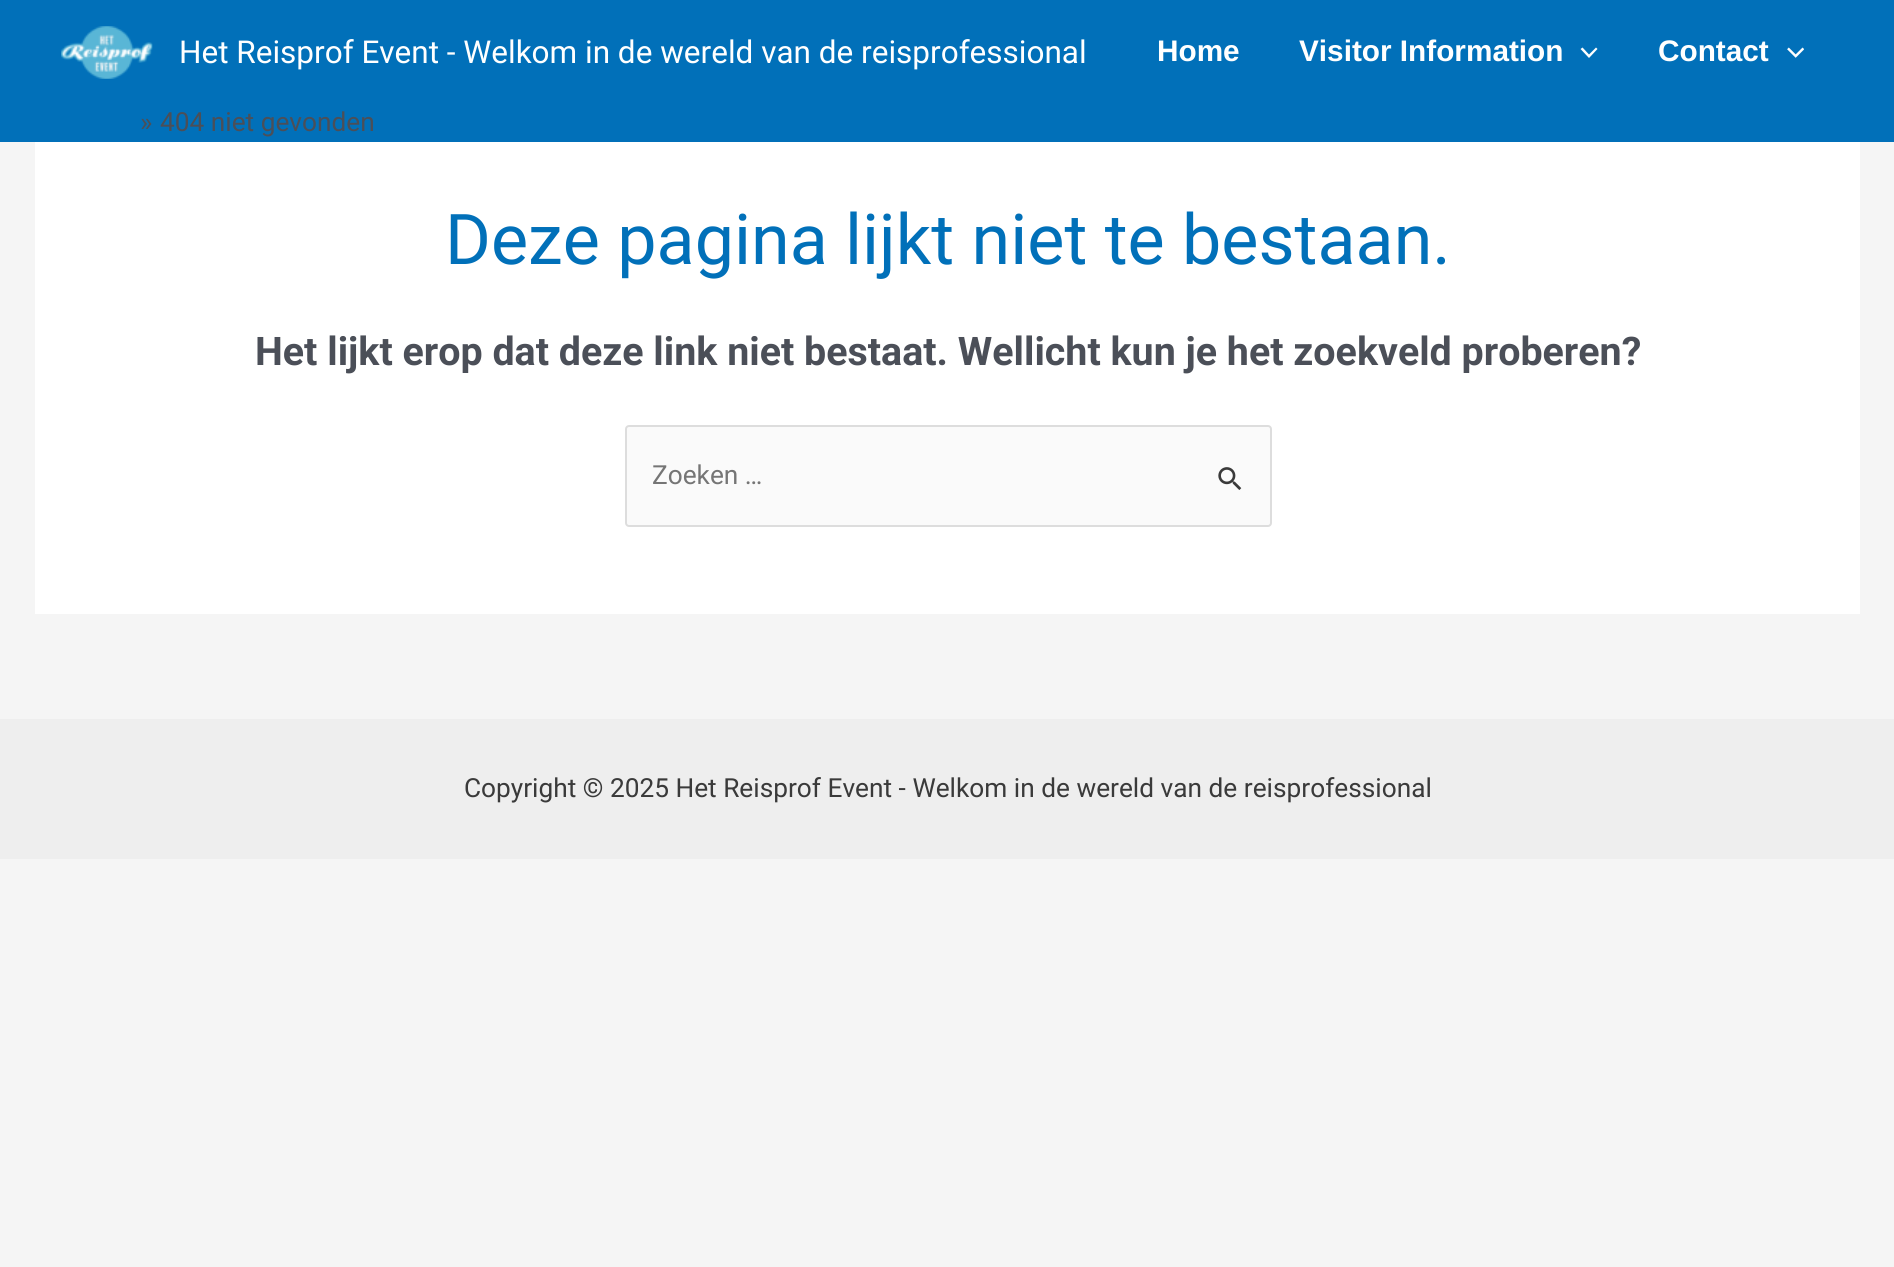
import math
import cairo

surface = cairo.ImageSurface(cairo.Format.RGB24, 1894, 1267)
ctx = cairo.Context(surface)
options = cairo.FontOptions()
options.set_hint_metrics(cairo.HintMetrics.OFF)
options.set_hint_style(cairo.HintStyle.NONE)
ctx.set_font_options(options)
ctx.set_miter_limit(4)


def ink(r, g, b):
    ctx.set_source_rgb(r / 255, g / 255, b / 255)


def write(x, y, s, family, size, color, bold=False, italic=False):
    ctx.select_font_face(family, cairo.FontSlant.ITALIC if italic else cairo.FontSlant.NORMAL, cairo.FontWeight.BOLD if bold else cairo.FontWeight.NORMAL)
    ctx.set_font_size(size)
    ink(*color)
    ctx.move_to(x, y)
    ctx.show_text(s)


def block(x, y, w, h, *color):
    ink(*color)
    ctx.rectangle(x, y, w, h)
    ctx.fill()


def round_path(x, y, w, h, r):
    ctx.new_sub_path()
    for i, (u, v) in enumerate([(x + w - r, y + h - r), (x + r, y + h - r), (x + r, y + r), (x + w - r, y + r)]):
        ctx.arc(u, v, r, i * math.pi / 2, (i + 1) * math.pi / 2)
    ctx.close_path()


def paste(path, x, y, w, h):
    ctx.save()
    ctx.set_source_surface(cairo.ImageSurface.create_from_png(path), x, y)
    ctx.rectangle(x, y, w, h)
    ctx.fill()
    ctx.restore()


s1 = dict(family="Roboto", size=31.5, color=(255, 255, 255))
s2 = dict(family="Liberation Sans", size=29.75, color=(255, 255, 255), bold=True)
s3 = dict(family="Roboto", size=26.25, color=(75, 79, 88))
s4 = dict(family="Roboto", size=70, color=(1, 112, 185))
s5 = dict(family="Roboto", size=39.4, color=(75, 79, 88), bold=True)
s6 = dict(family="Roboto", size=26.25, color=(117, 117, 117))
s7 = dict(family="Roboto", size=26.25, color=(58, 58, 58))

ink(245, 245, 245)
ctx.paint()
block(0, 0, 1894, 142, 1, 112, 185)
paste("pic1.png", 61, 26, 92, 53)
write(179, 63, "Het Reisprof Event - Welkom in de wereld van de reisprofessional", **s1)
write(1157, 61, "Home", **s2)
write(1299, 61, "Visitor Information", **s2)
ink(254, 254, 254)
ctx.new_path()
ctx.move_to(1580.5, 49)
ctx.line_to(1589, 58)
ctx.line_to(1597.5, 49)
ctx.line_to(1596, 47.5)
ctx.line_to(1589, 54.5)
ctx.line_to(1582.5, 47.5)
ctx.close_path()
ctx.fill()
write(1658, 61, "Contact", **s2)
paste("pic2.png", 1787, 47, 17, 11)
write(140, 131, "»", **s3)
write(160, 131, "404 niet gevonden", **s3)
block(35, 142, 1825, 472, 255, 255, 255)
write(445, 264, "Deze pagina lijkt niet te bestaan.", **s4)
write(255, 365, "Het lijkt erop dat deze link niet bestaat. Wellicht kun je het zoekveld proberen?", **s5)
ink(250, 250, 250)
round_path(626, 426, 645, 100, 3)
ctx.fill_preserve()
ink(221, 221, 221)
ctx.stroke()
write(652, 484, "Zoeken …", **s6)
paste("pic3.png", 1218, 467, 24, 23)
block(0, 719, 1894, 140, 238, 238, 238)
write(464, 797, "Copyright © 2025 Het Reisprof Event - Welkom in de wereld van de reisprofessional", **s7)
surface.write_to_png("screenshot.png")
